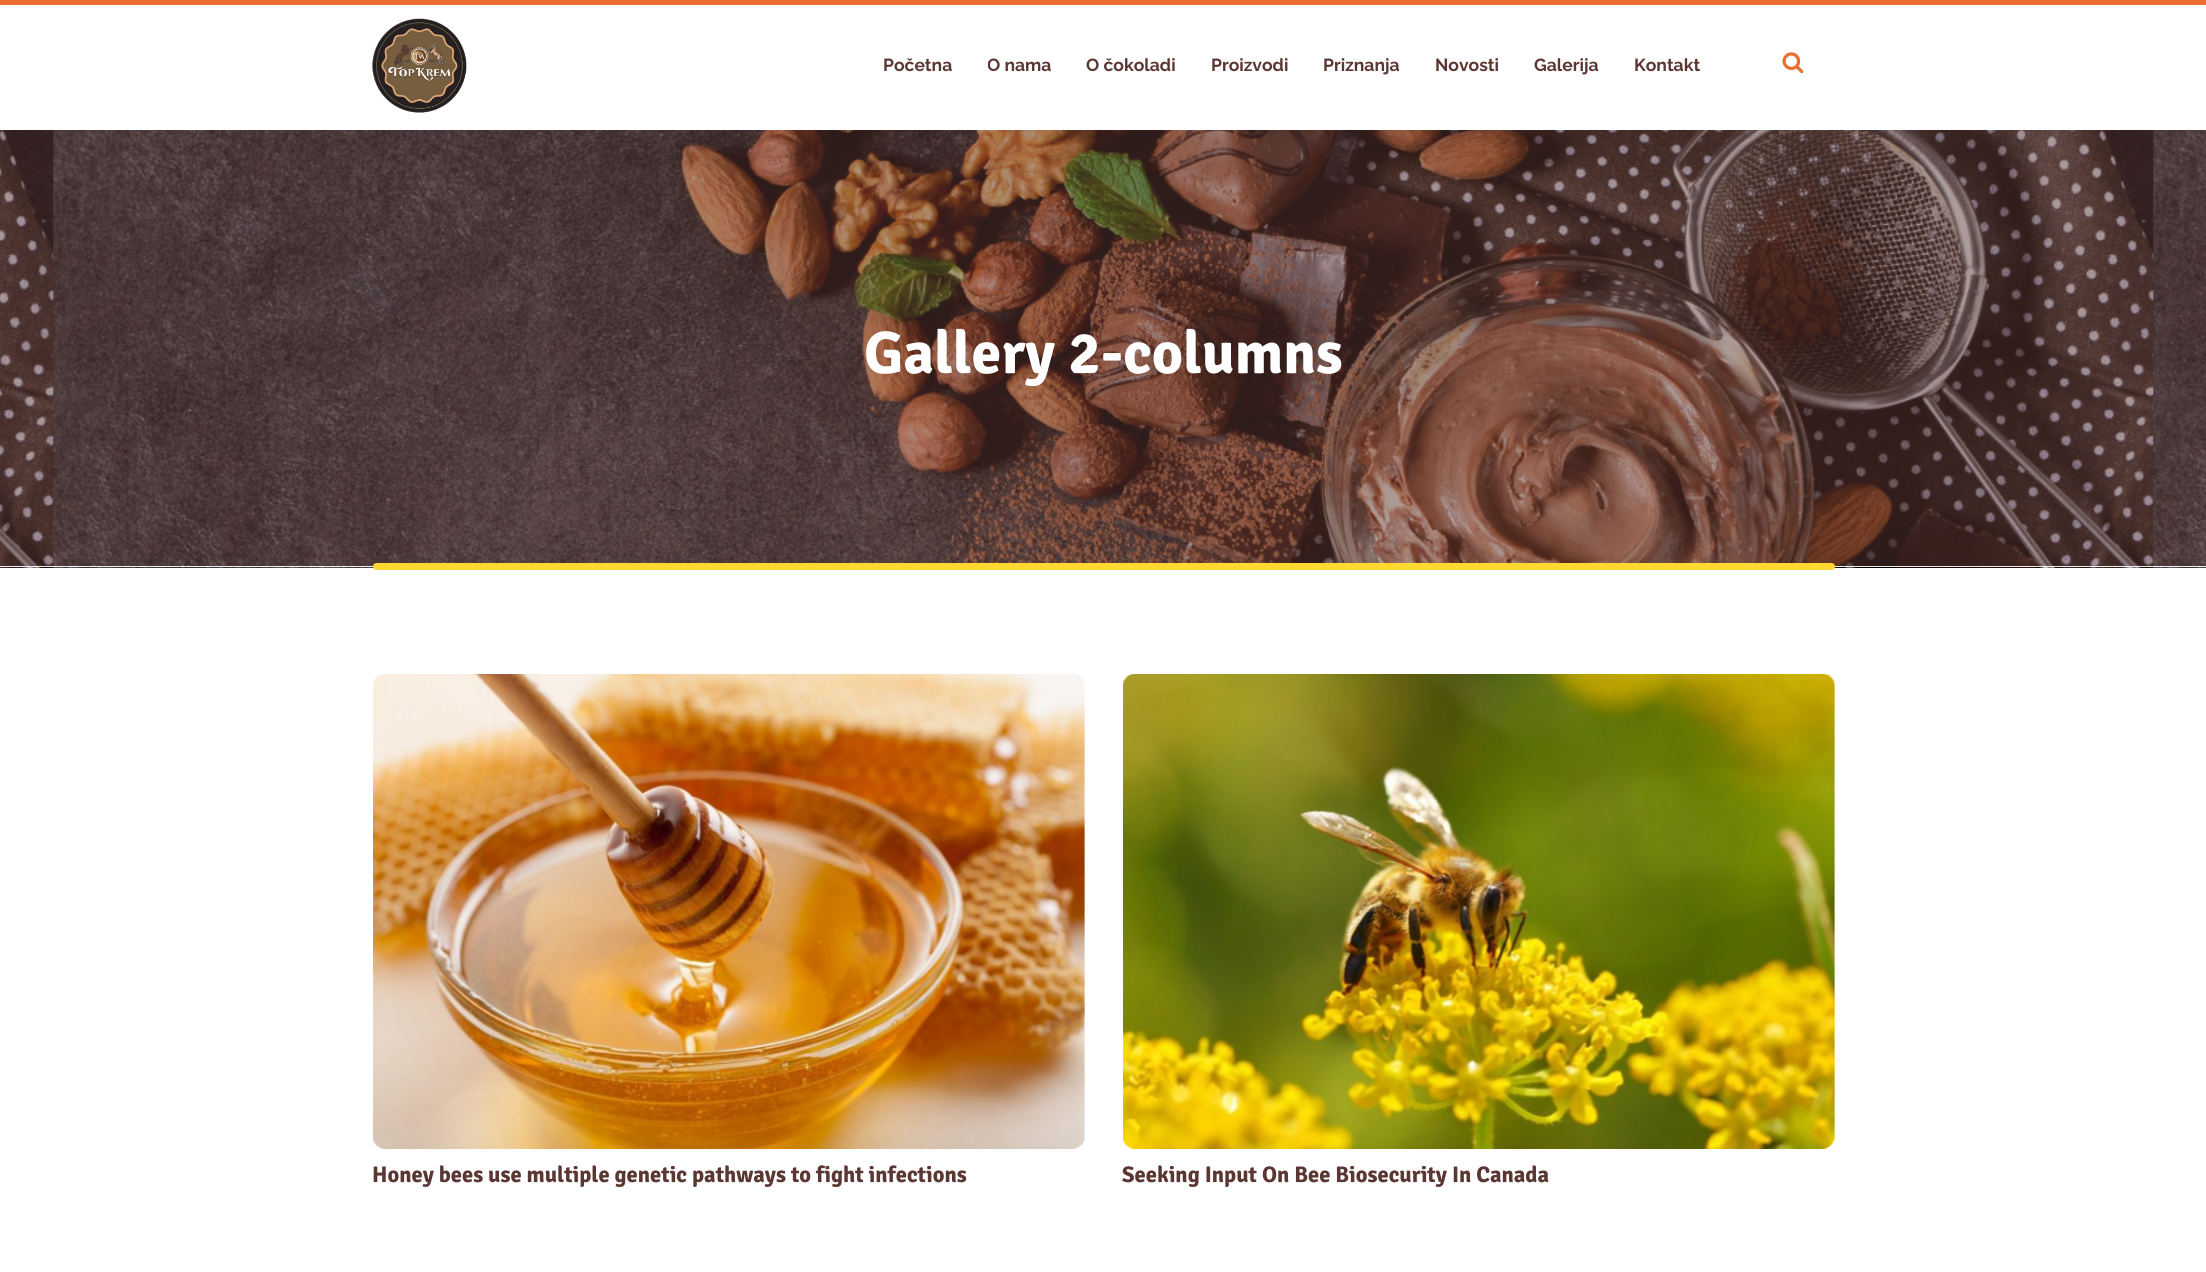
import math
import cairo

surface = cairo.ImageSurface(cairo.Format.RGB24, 2206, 1272)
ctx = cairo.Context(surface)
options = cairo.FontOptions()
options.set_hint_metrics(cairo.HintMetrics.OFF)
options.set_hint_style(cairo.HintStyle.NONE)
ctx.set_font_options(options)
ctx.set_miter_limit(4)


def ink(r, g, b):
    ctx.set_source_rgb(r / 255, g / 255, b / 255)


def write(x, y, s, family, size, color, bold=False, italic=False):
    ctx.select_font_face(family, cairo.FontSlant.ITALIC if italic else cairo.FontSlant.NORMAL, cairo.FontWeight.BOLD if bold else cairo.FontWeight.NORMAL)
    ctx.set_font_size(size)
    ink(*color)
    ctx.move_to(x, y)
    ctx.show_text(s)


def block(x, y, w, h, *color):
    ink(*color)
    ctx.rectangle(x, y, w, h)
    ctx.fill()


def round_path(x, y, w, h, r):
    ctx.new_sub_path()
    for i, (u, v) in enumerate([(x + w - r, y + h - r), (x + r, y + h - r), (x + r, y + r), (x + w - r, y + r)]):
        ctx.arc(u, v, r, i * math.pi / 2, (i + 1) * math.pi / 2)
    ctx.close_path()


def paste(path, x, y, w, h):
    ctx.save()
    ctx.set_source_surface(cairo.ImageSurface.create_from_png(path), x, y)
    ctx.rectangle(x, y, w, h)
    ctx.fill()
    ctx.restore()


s1 = dict(family="Raleway", size=17.5, color=(90, 55, 51), bold=True)
s2 = dict(family="Signika Light", size=60, color=(255, 255, 255))
s3 = dict(family="Signika Light", size=22.5, color=(90, 55, 51))

ink(255, 255, 255)
ctx.paint()
block(0, 0, 2206, 5, 235, 109, 47)
paste("pic1.png", 372, 18, 95, 95)
write(883, 71, "Početna", **s1)
ctx.save()
ctx.rectangle(988, 53, 63, 25)
ctx.clip()
write(987, 71, "O nama", **s1)
ctx.restore()
write(1086, 71, "O čokoladi", **s1)
write(1211, 71, "Proizvodi", **s1)
write(1323, 71, "Priznanja", **s1)
write(1435, 71, "Novosti", **s1)
write(1534, 71, "Galerija", **s1)
write(1634, 71, "Kontakt", **s1)
paste("pic2.png", 1782, 52, 22, 22)
paste("pic3.png", 0, 130, 2206, 438)
block(0, 566, 2206, 1, 238, 238, 238)
write(864, 373, "Gallery 2-columns", **s2)
ink(255, 216, 50)
round_path(373, 563, 1462, 7, 3.5)
ctx.fill()
paste("pic4.png", 373, 674, 712, 475)
write(372, 1182, "Honey bees use multiple genetic pathways to fight infections", **s3)
paste("pic5.png", 1123, 674, 712, 475)
write(1122, 1182, "Seeking Input On Bee Biosecurity In Canada", **s3)
surface.write_to_png("screenshot.png")
